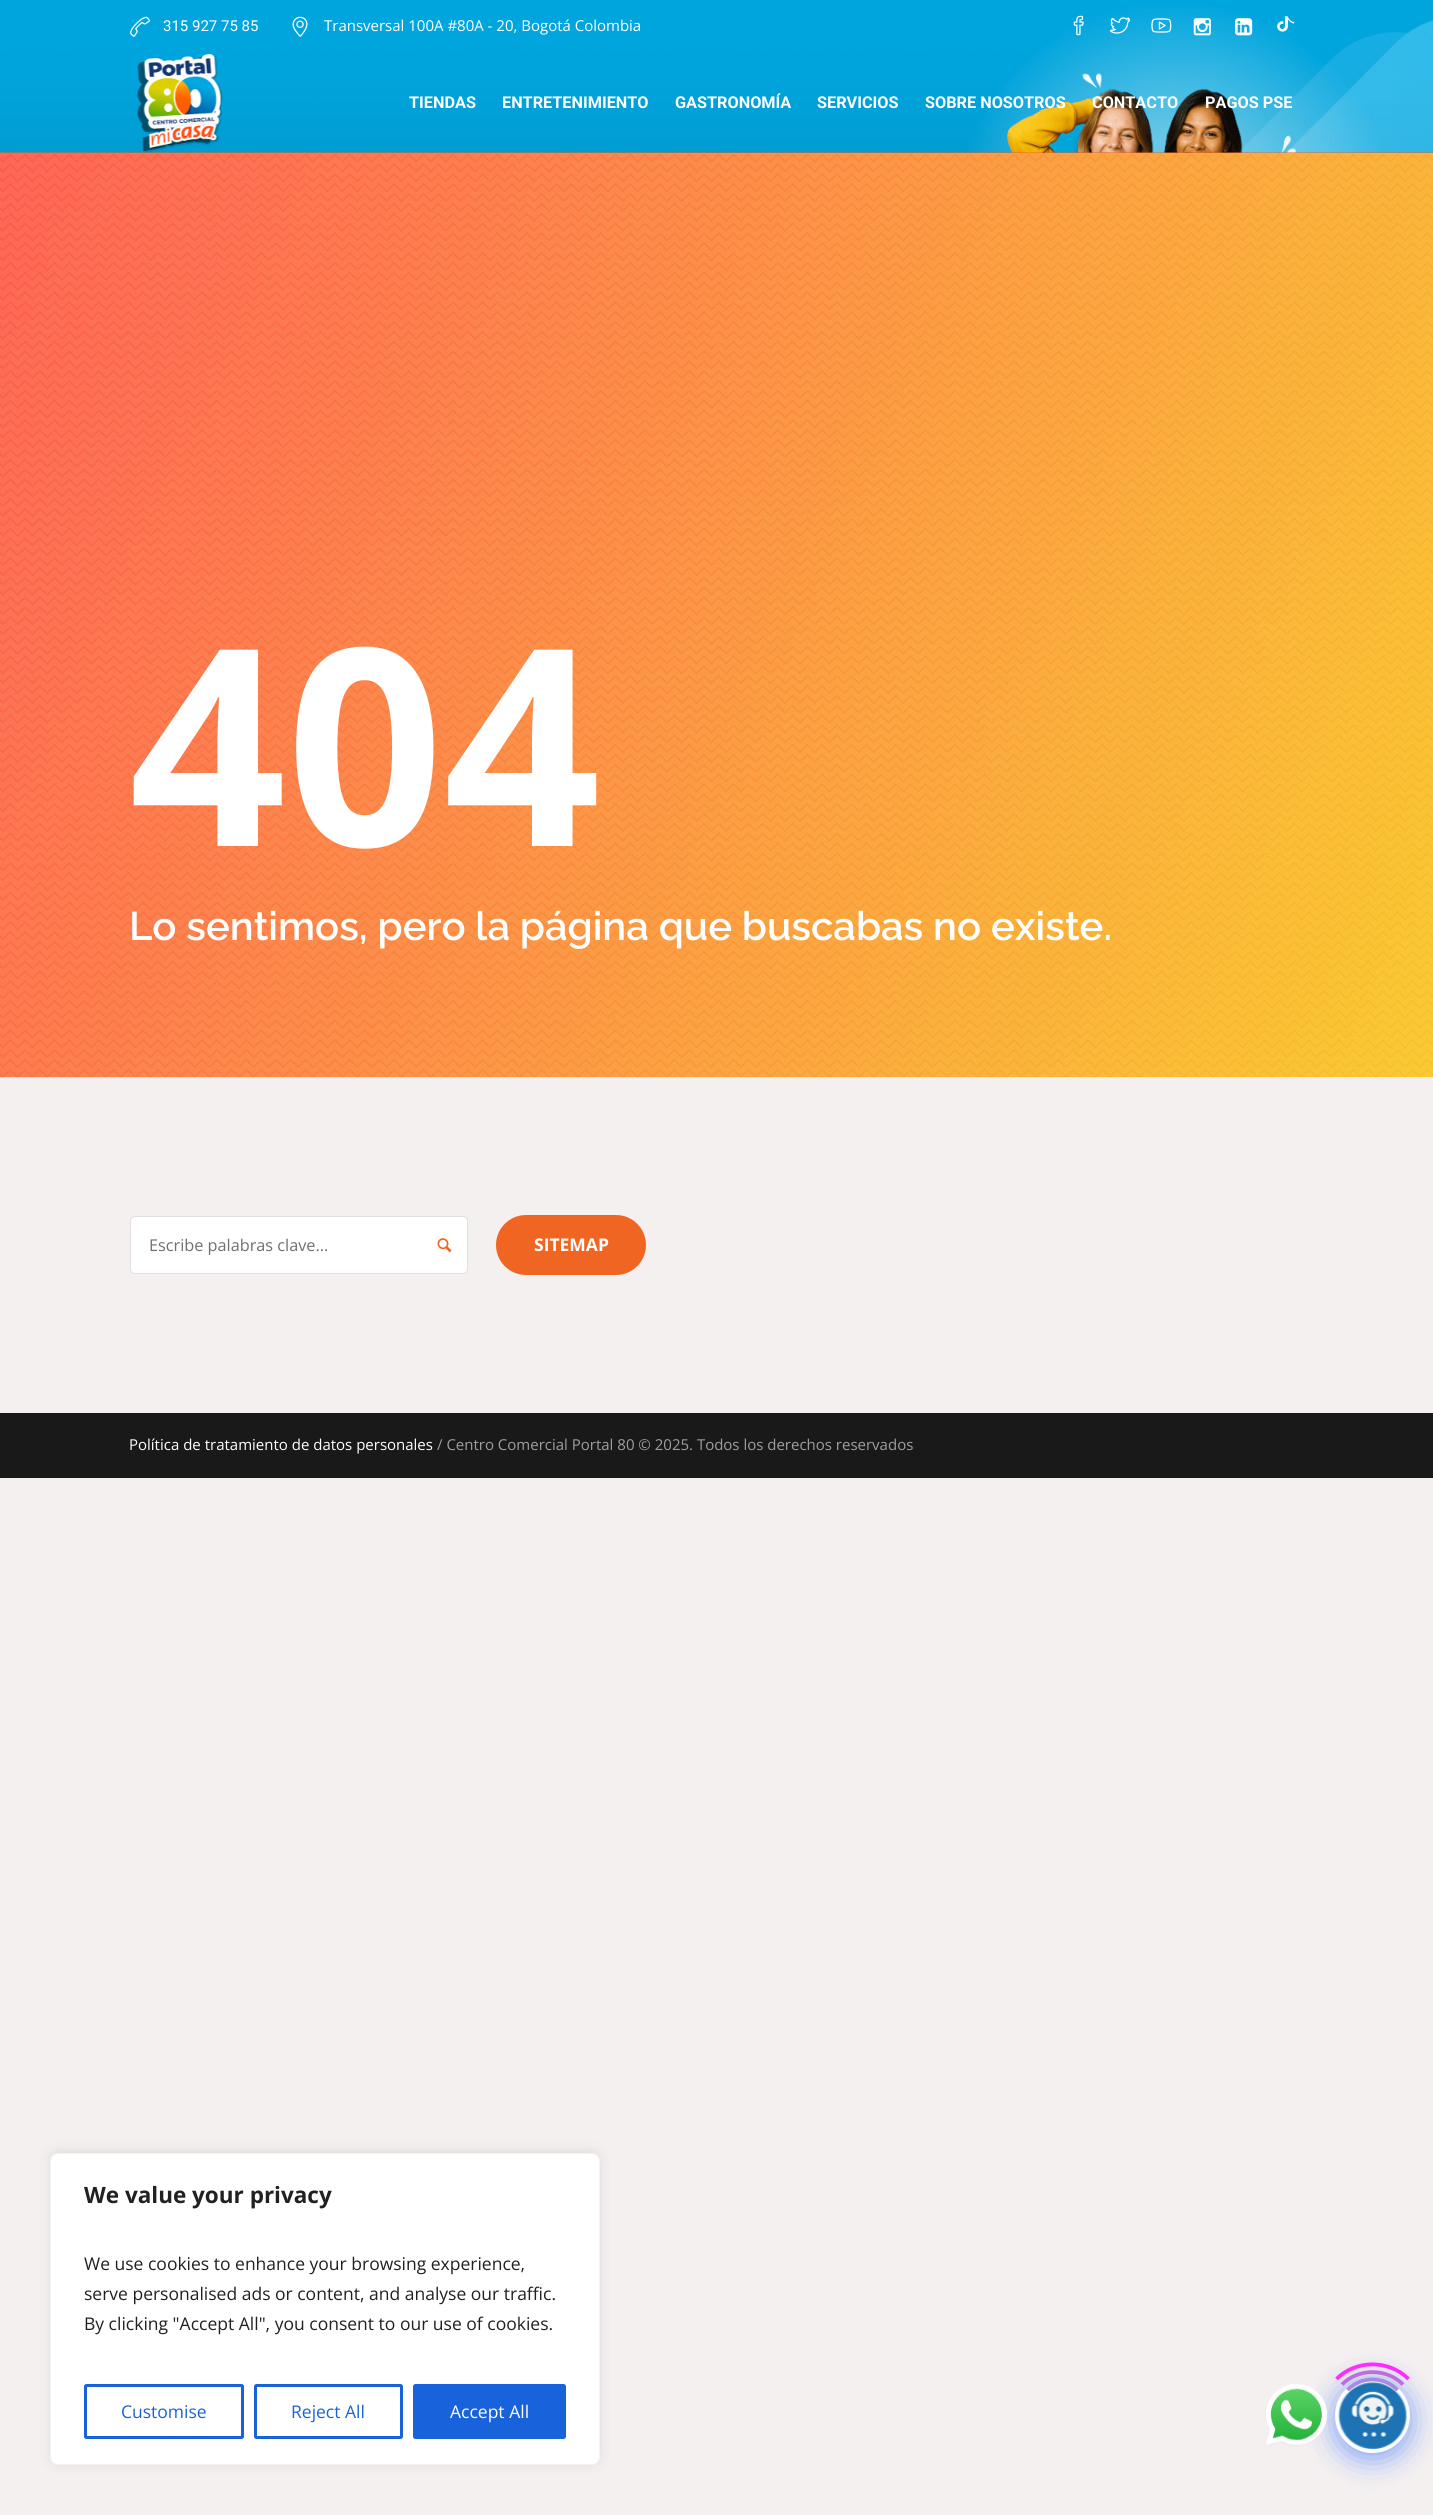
import math
import cairo

surface = cairo.ImageSurface(cairo.Format.RGB24, 1433, 2515)
ctx = cairo.Context(surface)
options = cairo.FontOptions()
options.set_hint_metrics(cairo.HintMetrics.OFF)
options.set_hint_style(cairo.HintStyle.NONE)
ctx.set_font_options(options)
ctx.set_miter_limit(4)


def ink(r, g, b):
    ctx.set_source_rgb(r / 255, g / 255, b / 255)


def write(x, y, s, family, size, color, bold=False, italic=False):
    ctx.select_font_face(family, cairo.FontSlant.ITALIC if italic else cairo.FontSlant.NORMAL, cairo.FontWeight.BOLD if bold else cairo.FontWeight.NORMAL)
    ctx.set_font_size(size)
    ink(*color)
    ctx.move_to(x, y)
    ctx.show_text(s)


def block(x, y, w, h, *color):
    ink(*color)
    ctx.rectangle(x, y, w, h)
    ctx.fill()


def round_path(x, y, w, h, r):
    ctx.new_sub_path()
    for i, (u, v) in enumerate([(x + w - r, y + h - r), (x + r, y + h - r), (x + r, y + r), (x + w - r, y + r)]):
        ctx.arc(u, v, r, i * math.pi / 2, (i + 1) * math.pi / 2)
    ctx.close_path()


def blur_box(x, y, w, h, r, blur, alpha):
    ctx.push_group_with_content(cairo.Content.ALPHA)
    ctx.set_operator(cairo.Operator.SOURCE)
    for i in range(15, -16, -2):
        e = blur * i / 6
        if min(w, h) + 2 * e > 0:
            ctx.set_source_rgba(0, 0, 0, alpha * math.erfc((i - 1) / 8.5) / 2)
            round_path(x - e, y - e, w + 2 * e, h + 2 * e, max(0, min(r + e + blur * .6, min(w, h) / 2 + e)))
            ctx.fill()
    ctx.mask(ctx.pop_group())


def paste(path, x, y, w, h):
    ctx.save()
    ctx.set_source_surface(cairo.ImageSurface.create_from_png(path), x, y)
    ctx.rectangle(x, y, w, h)
    ctx.fill()
    ctx.restore()


s1 = dict(family="Roboto", size=15, color=(255, 255, 255))
s2 = dict(family="Open Sans", size=15, color=(255, 255, 255))
s3 = dict(family="Roboto", size=16.25, color=(255, 255, 255), bold=True)
s4 = dict(family="Open Sans", size=275, color=(255, 255, 255), bold=True)
s5 = dict(family="Raleway SemiBold", size=40, color=(255, 255, 255))
s6 = dict(family="Open Sans", size=16.25, color=(113, 111, 110))
s7 = dict(family="Open Sans", size=17.5, color=(255, 255, 255), bold=True)
s8 = dict(family="Open Sans", size=15, color=(158, 158, 158))
s9 = dict(family="Open Sans", size=22.5, color=(33, 33, 33), bold=True)
s10 = dict(family="Open Sans", size=17.5, color=(33, 33, 33))
s11 = dict(family="Open Sans", size=17.5, color=(24, 99, 220))
s12 = dict(family="Open Sans", size=17.5, color=(255, 255, 255))

ink(245, 240, 240)
ctx.paint()
block(0, 152, 1433, 1, 241, 101, 34)
paste("pic10.png", 0, 0, 1433, 153)
paste("pic1.png", 130, 16, 20, 21)
write(163, 31, "315 927 75 85", **s1)
paste("pic2.png", 292, 16, 16, 21)
write(324, 31, "Transversal 100A #80A - 20, Bogotá Colombia", **s2)
paste("pic3.png", 1073, 15, 11, 21)
paste("pic4.png", 1110, 17, 20, 17)
paste("pic5.png", 1151, 18, 21, 15)
paste("pic6.png", 1193, 18, 18, 18)
paste("pic7.png", 1235, 18, 18, 18)
paste("pic8.png", 1277, 16, 18, 16)
paste("pic9.png", 137, 54, 86, 99)
write(409, 108, "TIENDAS", **s3)
write(502, 108, "ENTRETENIMIENTO", **s3)
write(675, 108, "GASTRONOMÍA", **s3)
write(817, 108, "SERVICIOS", **s3)
write(925, 108, "SOBRE NOSOTROS", **s3)
write(1092, 108, "CONTACTO", **s3)
write(1205, 108, "PAGOS PSE", **s3)
block(0, 1077, 1433, 1, 251, 251, 251)
paste("pic11.png", 0, 153, 1433, 925)
write(129, 846, "404", **s4)
write(129, 940, "Lo sentimos, pero la página que buscabas no existe.", **s5)
round_path(130.5, 1216.5, 337, 57, 4.5)
ctx.fill_preserve()
ink(227, 223, 222)
ctx.set_line_width(1)
ctx.stroke()
write(149, 1251, "Escribe palabras clave...", **s6)
paste("pic12.png", 437, 1238, 15, 14)
ink(241, 101, 34)
round_path(496, 1215, 150, 60, 30)
ctx.fill()
write(534, 1251, "SITEMAP", **s7)
block(0, 1413, 1433, 65, 25, 25, 25)
write(129, 1450, "Política de tratamiento de datos personales", **s2)
write(437, 1450, "/ Centro Comercial Portal 80 © 2025. Todos los derechos reservados", **s8)
ink(172, 171, 171)
blur_box(50, 2151, 550, 313, 8, 6, 0.3)
ink(255, 255, 255)
round_path(50.5, 2153.5, 549, 311, 7.5)
ctx.fill_preserve()
ink(244, 244, 244)
ctx.stroke()
write(84, 2203, "We value your privacy", **s9)
write(84, 2270, "We use cookies to enhance your browsing experience,", **s10)
write(84, 2300, "serve personalised ads or content, and analyse our traffic.", **s10)
write(84, 2330, "By clicking \"Accept All\", you consent to our use of cookies.", **s10)
round_path(85.5, 2385.5, 157, 52, 1)
ink(24, 99, 220)
ctx.set_line_width(3)
ctx.stroke()
write(121, 2418, "Customise", **s11)
round_path(255.5, 2385.5, 146, 52, 1)
ctx.stroke()
write(291, 2418, "Reject All", **s11)
round_path(414.5, 2385.5, 150, 52, 1)
ctx.fill_preserve()
ctx.stroke()
write(450, 2418, "Accept All", **s12)
ink(0, 77, 255)
blur_box(1335, 2383, 75, 75, 37.5, 15, 0.5)
ink(255, 255, 255)
ctx.arc(1372.5, 2415.5, 37.5, 0, 2 * math.pi)
ctx.fill()
paste("pic13.png", 1338, 2382, 69, 67)
ctx.new_path()
ctx.move_to(1347.5, 2390)
ctx.curve_to(1361, 2376, 1384, 2376, 1397.5, 2390)
ctx.set_source_rgba(0.576, 0.439, 0.859, 0.81)
ctx.set_line_width(3.8)
ctx.stroke()
ctx.new_path()
ctx.move_to(1342, 2384.5)
ctx.curve_to(1358.5, 2368, 1386.5, 2368, 1403, 2384.5)
ctx.set_source_rgba(0.729, 0.333, 0.827, 0.81)
ctx.stroke()
ctx.new_path()
ctx.move_to(1336.5, 2379)
ctx.curve_to(1356, 2359.5, 1389, 2359.5, 1408.5, 2379)
ctx.set_source_rgba(1, 0, 1, 0.81)
ctx.stroke()
paste("pic14.png", 1265, 2384, 62, 62)
surface.write_to_png("screenshot.png")
